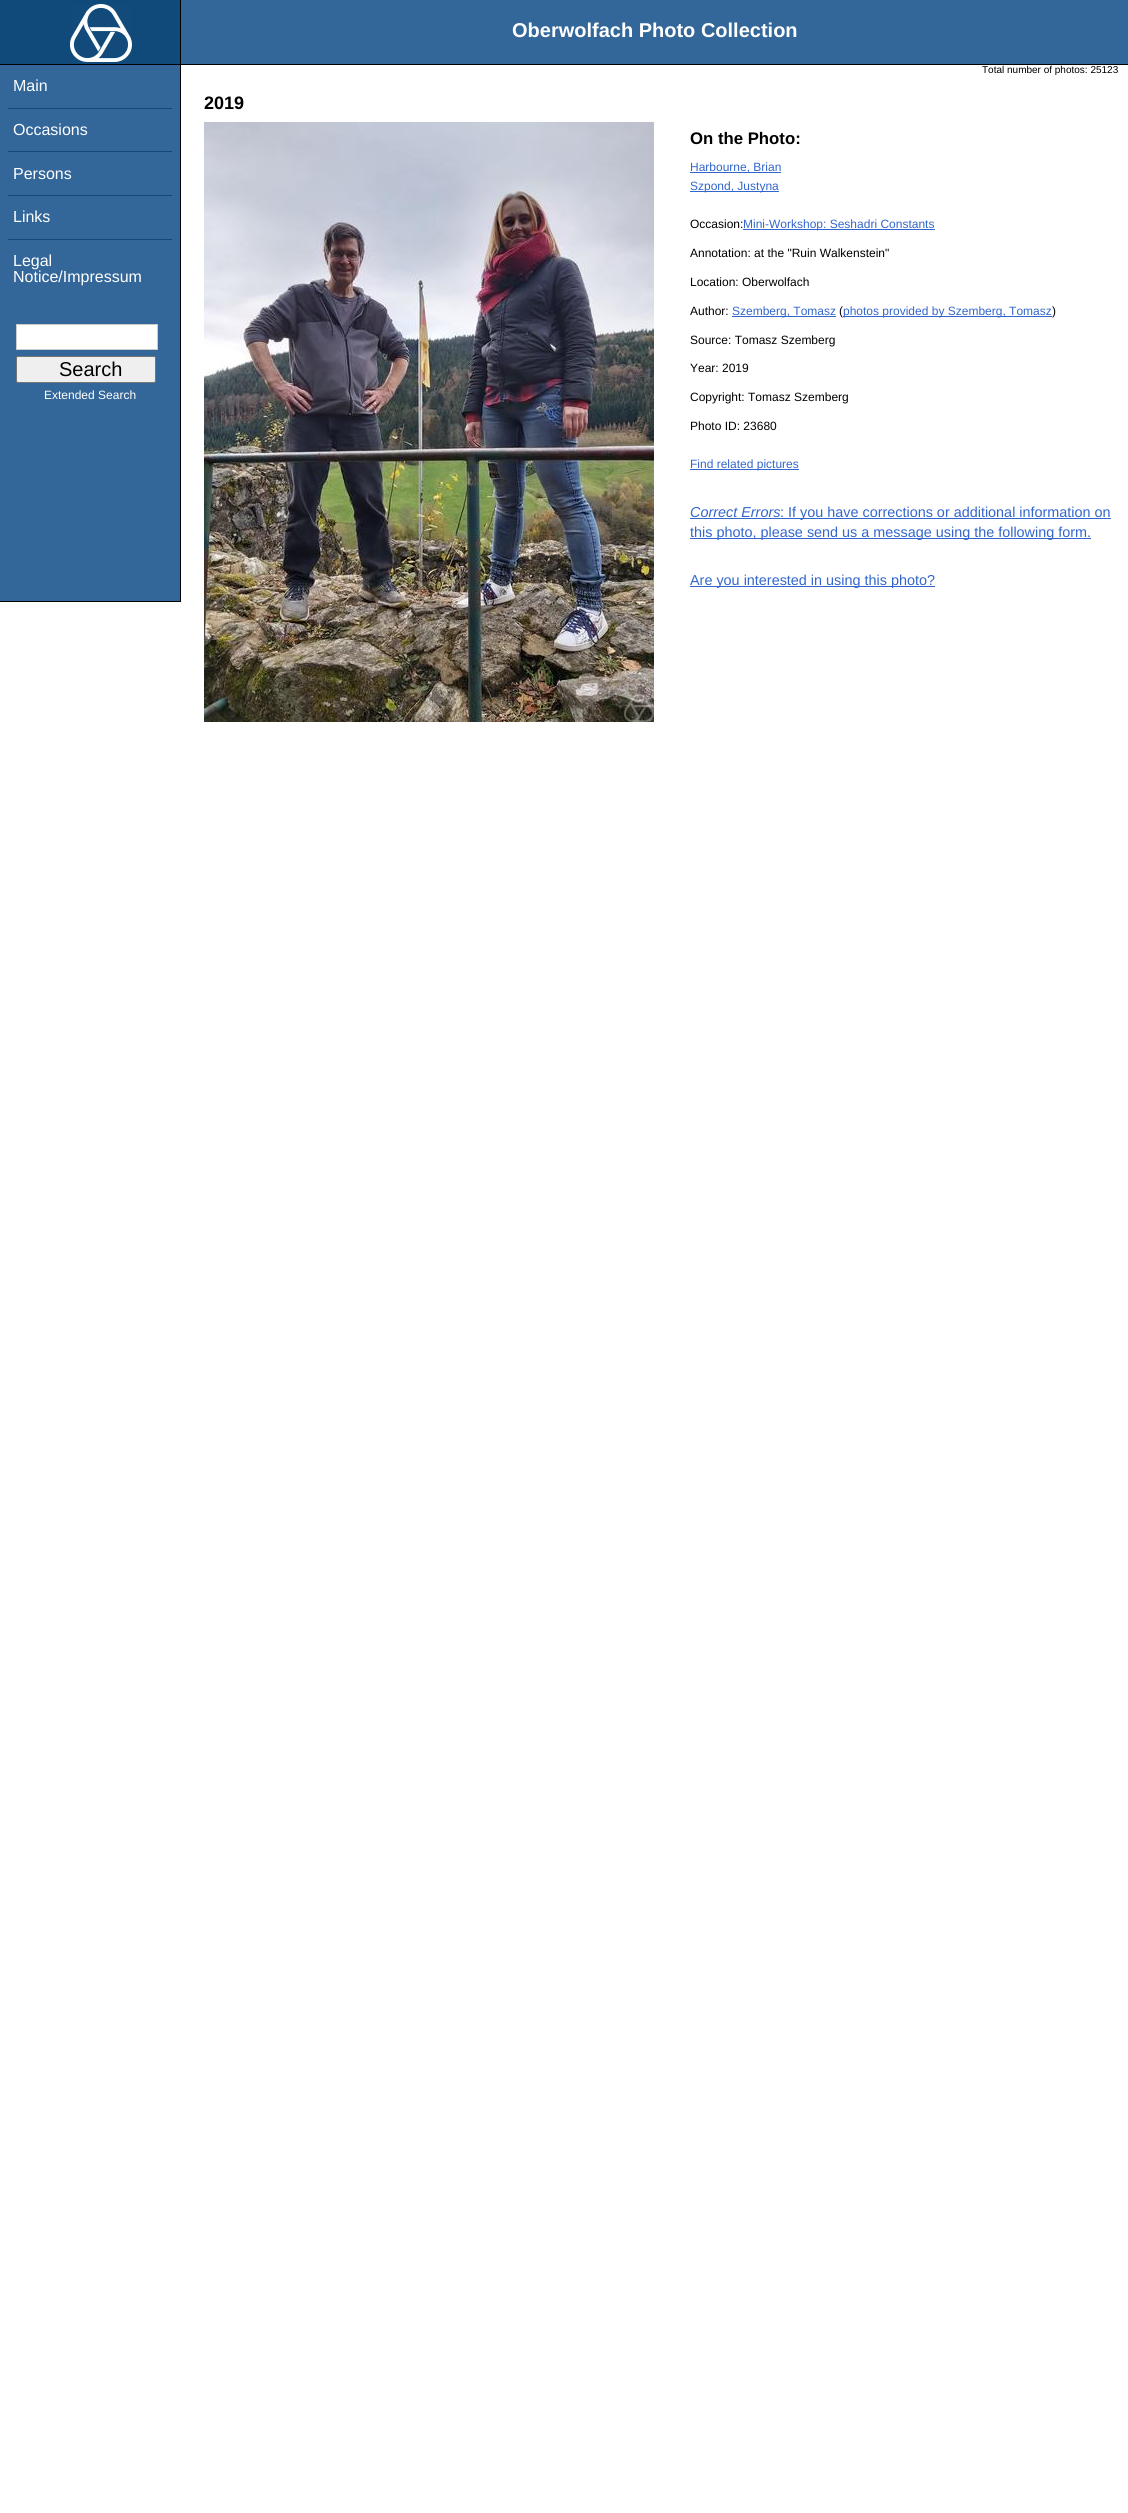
import math
import cairo

surface = cairo.ImageSurface(cairo.Format.RGB24, 1128, 2513)
ctx = cairo.Context(surface)
options = cairo.FontOptions()
options.set_hint_metrics(cairo.HintMetrics.OFF)
options.set_hint_style(cairo.HintStyle.NONE)
ctx.set_font_options(options)
ctx.set_miter_limit(4)


def ink(r, g, b):
    ctx.set_source_rgb(r / 255, g / 255, b / 255)


def write(x, y, s, family, size, color, bold=False, italic=False):
    ctx.select_font_face(family, cairo.FontSlant.ITALIC if italic else cairo.FontSlant.NORMAL, cairo.FontWeight.BOLD if bold else cairo.FontWeight.NORMAL)
    ctx.set_font_size(size)
    ink(*color)
    ctx.move_to(x, y)
    ctx.show_text(s)


def block(x, y, w, h, *color):
    ink(*color)
    ctx.rectangle(x, y, w, h)
    ctx.fill()


def round_path(x, y, w, h, r):
    ctx.new_sub_path()
    for i, (u, v) in enumerate([(x + w - r, y + h - r), (x + r, y + h - r), (x + r, y + r), (x + w - r, y + r)]):
        ctx.arc(u, v, r, i * math.pi / 2, (i + 1) * math.pi / 2)
    ctx.close_path()


def paste(path, x, y, w, h):
    ctx.save()
    ctx.set_source_surface(cairo.ImageSurface.create_from_png(path), x, y)
    ctx.rectangle(x, y, w, h)
    ctx.fill()
    ctx.restore()


s1 = dict(family="Liberation Sans", size=20, color=(255, 255, 255), bold=True)
s2 = dict(family="Liberation Sans", size=10, color=(0, 0, 0))
s3 = dict(family="Liberation Sans", size=16, color=(255, 255, 255))
s4 = dict(family="Liberation Sans", size=20, color=(0, 0, 0))
s5 = dict(family="Liberation Sans", size=12, color=(255, 255, 255))
s6 = dict(family="Liberation Sans", size=18, color=(0, 0, 0), bold=True)
s7 = dict(family="Liberation Sans", size=16.75, color=(0, 0, 0), bold=True)
s8 = dict(family="Liberation Sans", size=12, color=(51, 102, 204))
s9 = dict(family="Liberation Sans", size=12, color=(0, 0, 0))
s10 = dict(family="Liberation Sans", size=14.4, color=(51, 102, 204), italic=True)
s11 = dict(family="Liberation Sans", size=14.4, color=(51, 102, 204))

ink(255, 255, 255)
ctx.paint()
block(181, 0, 947, 64, 51, 102, 153)
block(0, 64, 1128, 1, 0, 0, 0)
block(0, 0, 180, 64, 16, 74, 123)
block(180, 0, 1, 64, 0, 0, 0)
paste("pic1.png", 70, 4, 62, 58)
write(512, 37, "Oberwolfach Photo Collection", **s1)
write(982, 73, "Total number of photos: 25123", **s2)
block(0, 65, 180, 536, 51, 102, 153)
block(180, 65, 1, 537, 0, 0, 0)
block(0, 601, 181, 1, 0, 0, 0)
write(13, 91, "Main", **s3)
block(8, 108, 164, 1, 16, 74, 123)
write(13, 135, "Occasions", **s3)
block(8, 151, 164, 1, 16, 74, 123)
write(13, 179, "Persons", **s3)
block(8, 195, 164, 1, 16, 74, 123)
write(13, 222, "Links", **s3)
block(8, 239, 164, 1, 16, 74, 123)
write(13, 266, "Legal", **s3)
write(13, 282, "Notice/Impressum", **s3)
ctx.rectangle(16.5, 324.5, 141, 25)
ctx.fill_preserve()
ink(204, 204, 204)
ctx.set_line_width(1)
ctx.stroke()
ink(239, 239, 239)
round_path(16.5, 356.5, 139, 26, 1.5)
ctx.fill_preserve()
ink(118, 118, 118)
ctx.stroke()
write(59, 376, "Search", **s4)
write(44, 399, "Extended Search", **s5)
write(204, 109, "2019", **s6)
paste("pic2.png", 204, 122, 450, 600)
write(690, 144, "On the Photo:", **s7)
block(690, 172, 91, 1, 51, 102, 204)
write(690, 171, "Harbourne, Brian", **s8)
block(690, 191, 89, 1, 51, 102, 204)
write(690, 190, "Szpond, Justyna", **s8)
write(690, 228, "Occasion:", **s9)
block(743, 229, 192, 1, 51, 102, 204)
write(743, 228, "Mini-Workshop: Seshadri Constants", **s8)
write(690, 257, "Annotation: at the \"Ruin Walkenstein\"", **s9)
write(690, 286, "Location: Oberwolfach", **s9)
write(690, 315, "Author:", **s9)
block(732, 316, 104, 1, 51, 102, 204)
write(732, 315, "Szemberg, Tomasz", **s8)
write(839, 315, "(", **s9)
block(843, 316, 209, 1, 51, 102, 204)
write(843, 315, "photos provided by Szemberg, Tomasz", **s8)
write(1052, 315, ")", **s9)
write(690, 344, "Source: Tomasz Szemberg", **s9)
write(690, 372, "Year: 2019", **s9)
write(690, 401, "Copyright: Tomasz Szemberg", **s9)
write(690, 430, "Photo ID: 23680", **s9)
block(690, 469, 109, 1, 51, 102, 204)
write(690, 468, "Find related pictures", **s8)
write(690, 517, "Correct Errors", **s10)
block(690, 518, 421, 1, 51, 102, 204)
write(780, 517, ": If you have corrections or additional information on", **s11)
block(690, 538, 401, 1, 51, 102, 204)
write(690, 537, "this photo, please send us a message using the following form.", **s11)
block(690, 586, 245, 1, 51, 102, 204)
write(690, 585, "Are you interested in using this photo?", **s11)
surface.write_to_png("screenshot.png")
